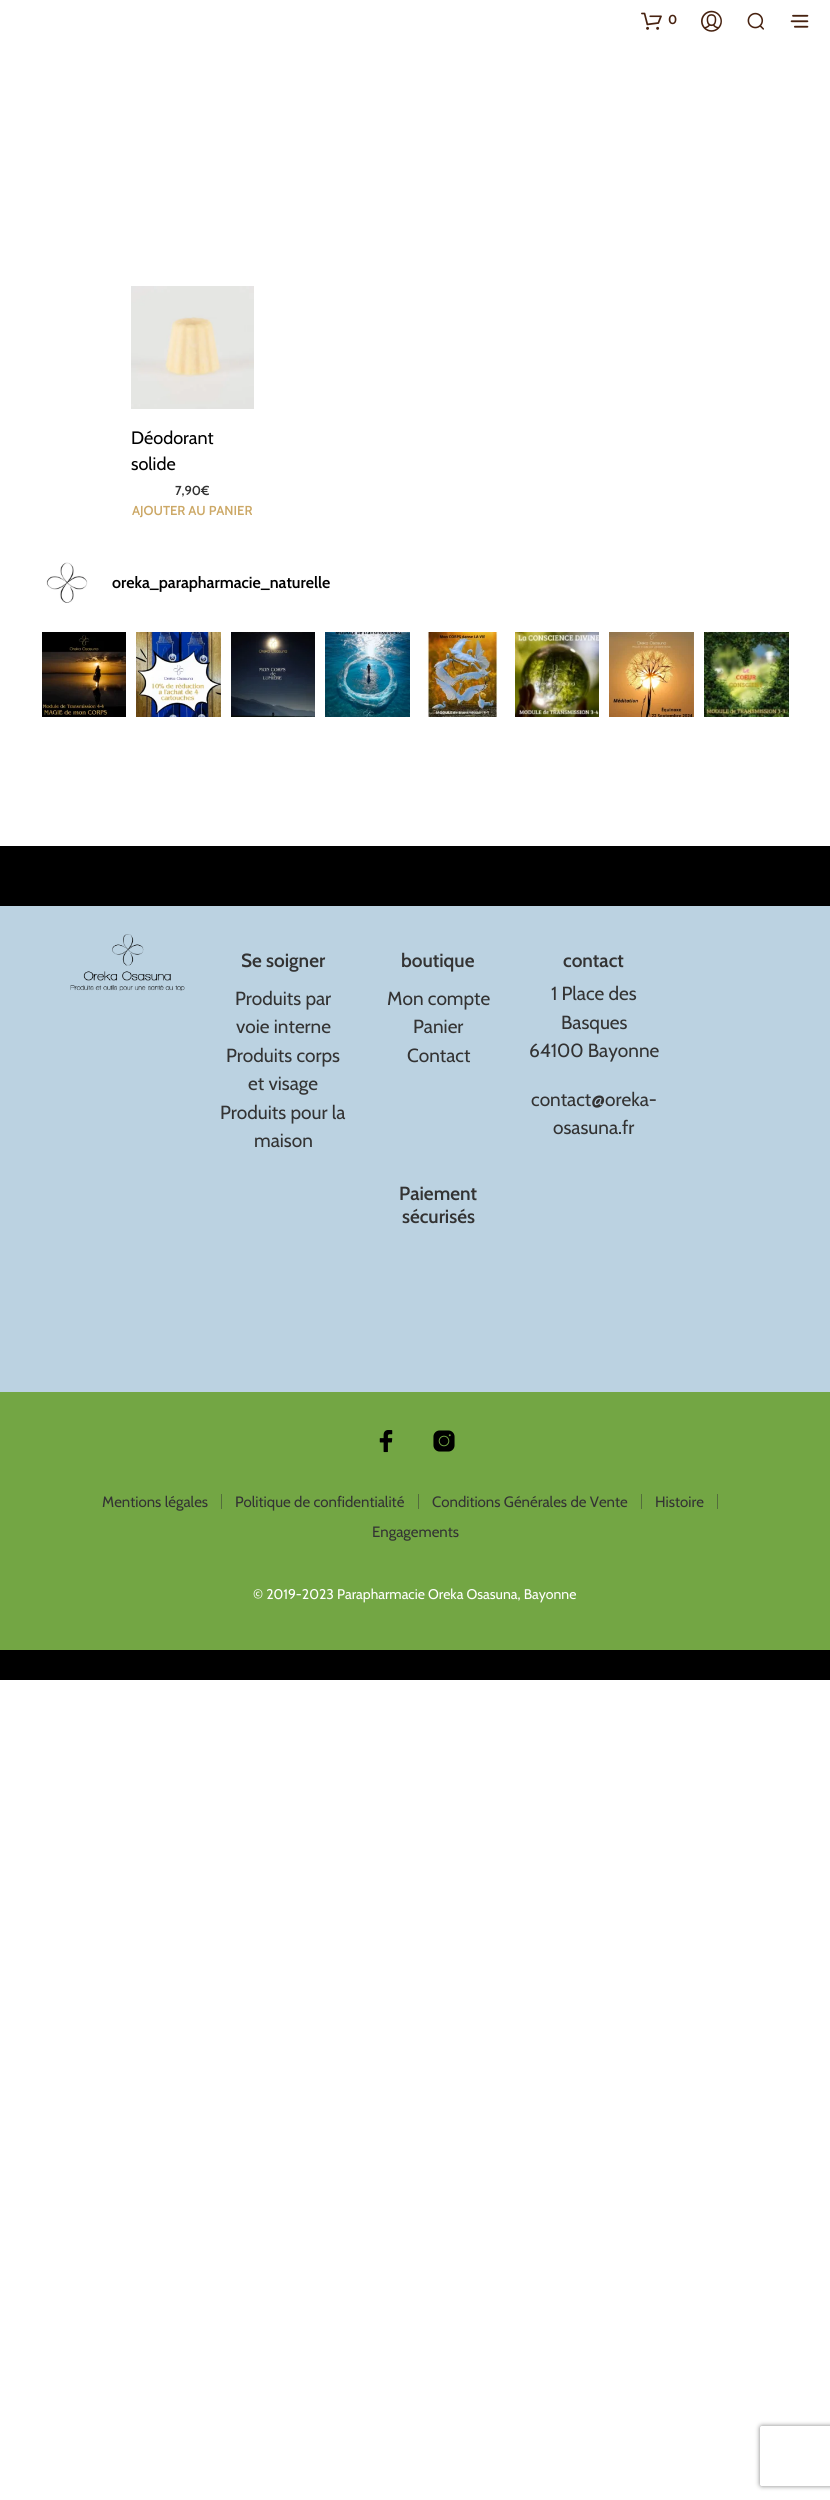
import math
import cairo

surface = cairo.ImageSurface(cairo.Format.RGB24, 830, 2500)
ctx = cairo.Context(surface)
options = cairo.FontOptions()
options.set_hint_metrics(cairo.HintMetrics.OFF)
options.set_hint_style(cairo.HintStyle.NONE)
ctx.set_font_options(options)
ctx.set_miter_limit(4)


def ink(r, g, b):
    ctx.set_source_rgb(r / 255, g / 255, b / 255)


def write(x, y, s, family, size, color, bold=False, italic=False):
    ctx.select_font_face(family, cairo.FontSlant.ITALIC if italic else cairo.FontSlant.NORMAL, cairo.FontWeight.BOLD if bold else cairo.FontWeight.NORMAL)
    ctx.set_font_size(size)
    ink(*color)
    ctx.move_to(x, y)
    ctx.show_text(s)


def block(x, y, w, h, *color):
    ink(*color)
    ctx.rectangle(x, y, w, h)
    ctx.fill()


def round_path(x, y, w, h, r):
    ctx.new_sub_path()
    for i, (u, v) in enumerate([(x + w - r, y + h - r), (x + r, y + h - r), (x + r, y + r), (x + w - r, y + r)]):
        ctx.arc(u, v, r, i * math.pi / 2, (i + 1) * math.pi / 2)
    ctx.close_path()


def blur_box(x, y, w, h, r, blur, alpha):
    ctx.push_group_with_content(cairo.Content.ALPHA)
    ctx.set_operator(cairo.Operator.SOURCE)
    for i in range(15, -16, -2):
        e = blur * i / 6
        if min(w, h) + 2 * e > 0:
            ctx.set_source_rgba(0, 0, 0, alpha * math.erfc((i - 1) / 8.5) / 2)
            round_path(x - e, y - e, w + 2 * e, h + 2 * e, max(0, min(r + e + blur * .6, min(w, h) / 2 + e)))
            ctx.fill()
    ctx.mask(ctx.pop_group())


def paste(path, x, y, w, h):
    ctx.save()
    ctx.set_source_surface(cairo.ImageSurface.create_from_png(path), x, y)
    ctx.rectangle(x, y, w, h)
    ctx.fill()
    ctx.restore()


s1 = dict(family="Cabin", size=13, color=(71, 34, 16), bold=True)
s2 = dict(family="Cabin", size=18, color=(0, 0, 0))
s3 = dict(family="Cabin SemiBold", size=13, color=(51, 51, 51))
s4 = dict(family="Cabin SemiBold", size=13, color=(204, 168, 102))
s5 = dict(family="Cabin SemiBold", size=16, color=(0, 0, 0))
s6 = dict(family="Cabin SemiBold", size=19, color=(51, 51, 51))
s7 = dict(family="Cabin", size=19, color=(51, 51, 51))
s8 = dict(family="Cabin", size=15, color=(51, 51, 51))
s9 = dict(family="Cabin", size=14, color=(255, 255, 255))

ink(255, 255, 255)
ctx.paint()
paste("pic1.png", 641, 12, 21, 18)
write(668, 24, "0", **s1)
paste("pic2.png", 701, 10, 21, 22)
paste("pic3.png", 747, 12, 17, 18)
paste("pic4.png", 790, 14, 19, 14)
paste("pic5.png", 131, 286, 123, 123)
write(131, 444, "Déodorant", **s2)
write(131, 470, "solide", **s2)
write(175, 495, "7,90€", **s3)
write(132, 515, "AJOUTER AU PANIER", **s4)
paste("pic6.png", 46, 562, 42, 41)
write(112, 588, "oreka_parapharmacie_naturelle", **s5)
paste("pic7.png", 42, 632, 84, 85)
paste("pic8.png", 136, 632, 85, 85)
paste("pic9.png", 231, 632, 84, 85)
paste("pic10.png", 325, 632, 85, 85)
paste("pic11.png", 427, 632, 71, 85)
paste("pic12.png", 515, 632, 84, 85)
paste("pic13.png", 609, 632, 85, 85)
paste("pic14.png", 704, 632, 85, 85)
block(0, 846, 830, 834, 0, 0, 0)
block(0, 906, 830, 486, 187, 210, 225)
paste("pic15.png", 70, 934, 115, 57)
write(241, 967, "Se soigner", **s6)
write(235, 1005, "Produits par", **s7)
write(236, 1033, "voie interne", **s7)
write(226, 1062, "Produits corps", **s7)
write(248, 1090, "et visage", **s7)
write(220, 1119, "Produits pour la", **s7)
write(254, 1147, "maison", **s7)
write(401, 967, "boutique", **s6)
write(387, 1005, "Mon compte", **s7)
write(413, 1033, "Panier", **s7)
write(407, 1062, "Contact", **s7)
write(563, 967, "contact", **s6)
write(551, 1000, "1 Place des", **s7)
write(561, 1029, "Basques", **s7)
write(529, 1057, "64100 Bayonne", **s7)
write(531, 1106, "contact@oreka-", **s7)
write(553, 1134, "osasuna.fr", **s7)
write(399, 1200, "Paiement", **s6)
write(402, 1223, "sécurisés", **s6)
block(0, 1392, 830, 258, 115, 166, 68)
paste("pic16.png", 379, 1430, 14, 23)
paste("pic17.png", 433, 1430, 22, 22)
write(102, 1507, "Mentions légales", **s8)
block(221, 1494, 1, 15, 83, 109, 60)
write(235, 1507, "Politique de confidentialité", **s8)
block(418, 1494, 1, 15, 83, 109, 60)
write(432, 1507, "Conditions Générales de Vente", **s8)
block(641, 1494, 1, 15, 83, 109, 60)
write(655, 1507, "Histoire", **s8)
block(717, 1494, 1, 15, 83, 109, 60)
write(372, 1537, "Engagements", **s8)
write(253, 1599, "© 2019-2023 Parapharmacie Oreka Osasuna, Bayonne", **s9)
ctx.save()
ctx.set_fill_rule(cairo.FillRule.EVEN_ODD)
ctx.new_path()
ctx.move_to(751, 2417)
ctx.line_to(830, 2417)
ctx.line_to(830, 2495)
ctx.line_to(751, 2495)
ctx.close_path()
ctx.move_to(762, 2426)
ctx.line_to(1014, 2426)
ctx.curve_to(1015, 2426, 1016, 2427, 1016, 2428)
ctx.line_to(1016, 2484)
ctx.curve_to(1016, 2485, 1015, 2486, 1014, 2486)
ctx.line_to(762, 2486)
ctx.curve_to(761, 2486, 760, 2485, 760, 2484)
ctx.line_to(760, 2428)
ctx.curve_to(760, 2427, 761, 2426, 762, 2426)
ctx.close_path()
ctx.clip()
ink(128, 128, 128)
blur_box(760, 2426, 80, 60, 2, 2.5, 1)
ctx.restore()
surface.write_to_png("screenshot.png")
